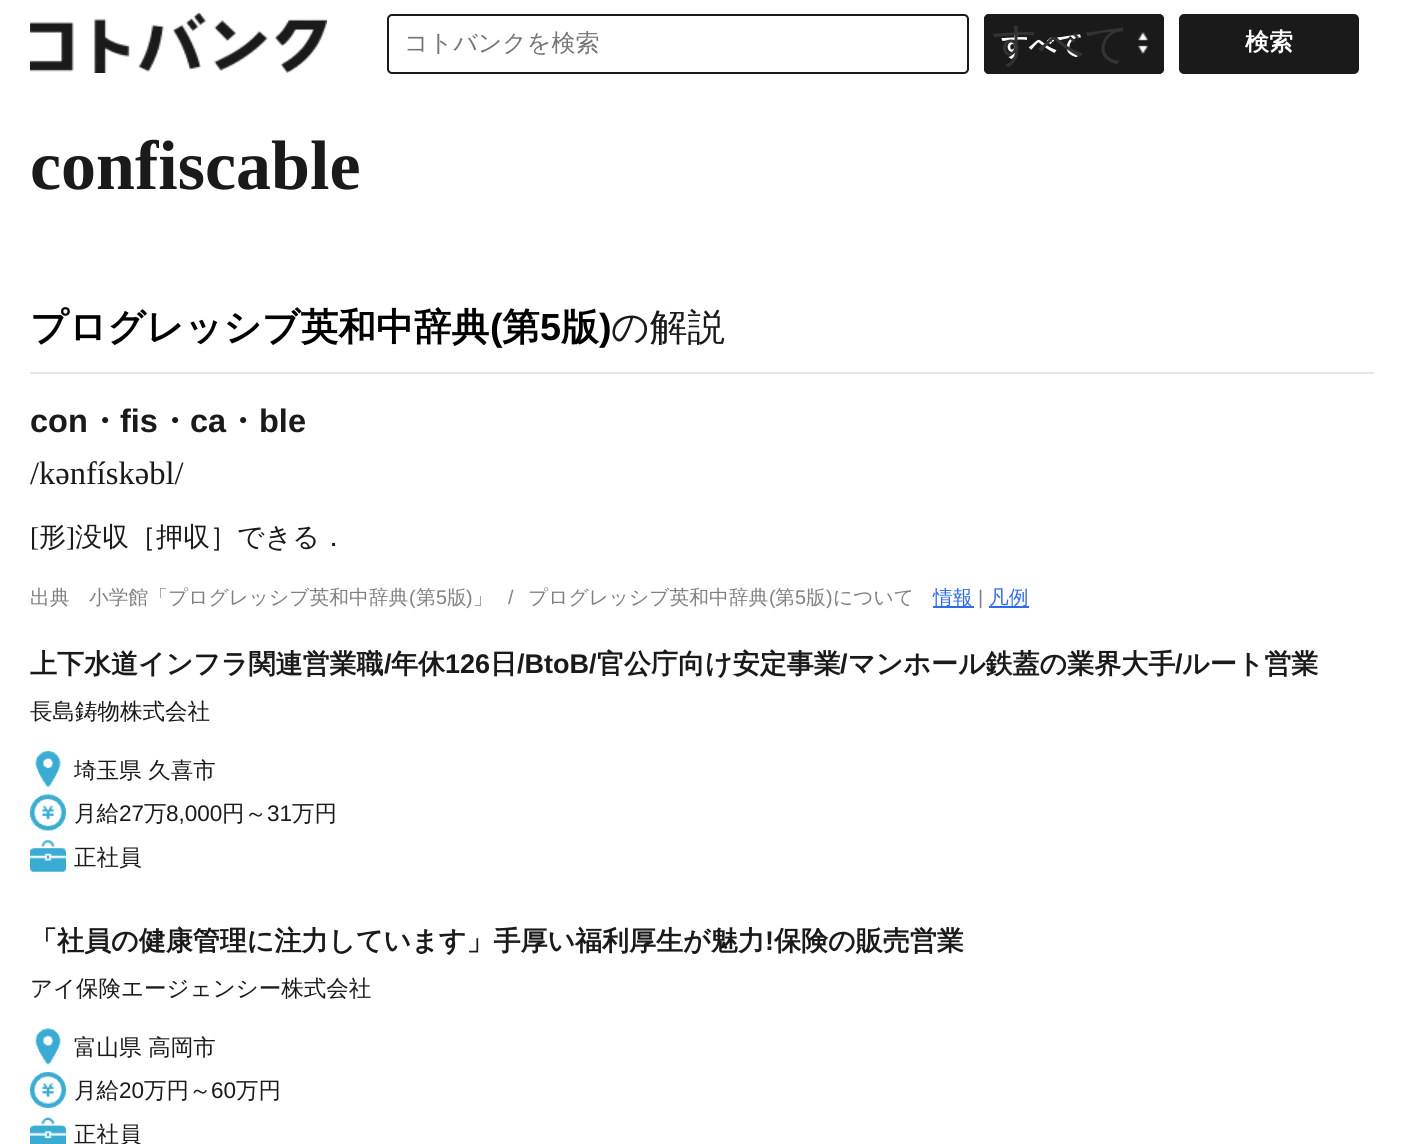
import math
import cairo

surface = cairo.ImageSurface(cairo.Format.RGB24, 1403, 1144)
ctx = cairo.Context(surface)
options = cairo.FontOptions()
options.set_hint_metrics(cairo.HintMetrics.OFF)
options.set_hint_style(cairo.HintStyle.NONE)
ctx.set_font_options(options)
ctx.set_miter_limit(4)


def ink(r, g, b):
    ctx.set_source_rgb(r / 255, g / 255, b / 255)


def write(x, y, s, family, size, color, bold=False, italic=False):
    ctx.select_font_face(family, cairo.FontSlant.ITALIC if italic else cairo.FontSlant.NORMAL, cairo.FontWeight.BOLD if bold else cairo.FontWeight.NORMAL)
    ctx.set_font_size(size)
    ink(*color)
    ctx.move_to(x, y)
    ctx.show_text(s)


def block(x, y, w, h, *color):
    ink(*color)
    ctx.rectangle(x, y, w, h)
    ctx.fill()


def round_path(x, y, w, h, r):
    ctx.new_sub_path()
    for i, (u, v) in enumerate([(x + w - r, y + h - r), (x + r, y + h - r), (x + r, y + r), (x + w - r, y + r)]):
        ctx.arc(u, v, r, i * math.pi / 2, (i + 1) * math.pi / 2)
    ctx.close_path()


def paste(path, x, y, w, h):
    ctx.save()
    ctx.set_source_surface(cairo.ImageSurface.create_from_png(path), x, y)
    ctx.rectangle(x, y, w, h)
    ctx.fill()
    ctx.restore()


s1 = dict(family="WenQuanYi Zen Hei Medium", size=24, color=(117, 117, 117))
s2 = dict(family="WenQuanYi Zen Hei", size=27, color=(255, 255, 255), bold=True)
s3 = dict(family="WenQuanYi Zen Hei Medium", size=45, color=(51, 51, 51))
s4 = dict(family="WenQuanYi Zen Hei", size=24, color=(255, 255, 255), bold=True)
s5 = dict(family="Liberation Serif", size=70, color=(26, 26, 26), bold=True)
s6 = dict(family="WenQuanYi Zen Hei", size=37.75, color=(0, 0, 0), bold=True)
s7 = dict(family="Liberation Sans", size=37.75, color=(0, 0, 0), bold=True)
s8 = dict(family="WenQuanYi Zen Hei Medium", size=37.75, color=(26, 26, 26))
s9 = dict(family="Liberation Sans", size=32.5, color=(26, 26, 26), bold=True)
s10 = dict(family="WenQuanYi Zen Hei", size=32.5, color=(26, 26, 26), bold=True)
s11 = dict(family="Liberation Serif", size=32.5, color=(26, 26, 26))
s12 = dict(family="Liberation Serif", size=27, color=(26, 26, 26))
s13 = dict(family="WenQuanYi Zen Hei Medium", size=27, color=(26, 26, 26))
s14 = dict(family="WenQuanYi Zen Hei Medium", size=19.75, color=(128, 128, 128))
s15 = dict(family="Liberation Sans", size=19.75, color=(128, 128, 128))
s16 = dict(family="WenQuanYi Zen Hei Medium", size=19.75, color=(47, 107, 230))
s17 = dict(family="WenQuanYi Zen Hei", size=27, color=(26, 26, 26), bold=True)
s18 = dict(family="Liberation Sans", size=27, color=(26, 26, 26), bold=True)
s19 = dict(family="WenQuanYi Zen Hei Medium", size=22.5, color=(26, 26, 26))
s20 = dict(family="Liberation Sans", size=22.5, color=(26, 26, 26))

ink(255, 255, 255)
ctx.paint()
paste("pic1.png", 30, 13, 297, 60)
round_path(388, 15, 580, 58, 4)
ink(26, 26, 26)
ctx.stroke()
write(404, 51, "コトバンクを検索", **s1)
ink(26, 26, 26)
round_path(984, 14, 180, 60, 5)
ctx.fill()
paste("pic2.png", 1138, 32, 10, 22)
round_path(985, 15, 178, 58, 4)
ctx.stroke()
write(1001, 54, "すべて", **s2)
write(992, 59, "すべて", **s3)
ink(26, 26, 26)
round_path(1180, 15, 178, 58, 4)
ctx.fill_preserve()
ctx.stroke()
write(1245, 50, "検索", **s4)
write(30, 189, "confiscable", **s5)
block(30, 372, 1344, 2, 230, 230, 230)
write(30, 340, "プログレッシブ英和中辞典", **s6)
write(490, 340, "(", **s7)
write(502, 340, "第", **s6)
write(540, 340, "5", **s7)
write(561, 340, "版", **s6)
write(599, 340, ")", **s7)
write(611, 340, "の解説", **s8)
write(30, 432, "con", **s9)
write(88, 432, "・", **s10)
write(120, 432, "fis", **s9)
write(158, 432, "・", **s10)
write(190, 432, "ca", **s9)
write(226, 432, "・", **s10)
write(259, 432, "ble", **s9)
write(30, 484, "/kənfískəbl/", **s11)
write(30, 546, "[", **s12)
write(39, 546, "形", **s13)
write(66, 546, "]", **s12)
write(75, 546, "没収［押収］できる．", **s13)
write(30, 604, "出典", **s14)
write(89, 604, "小学館「プログレッシブ英和中辞典", **s14)
write(409, 604, "(", **s15)
write(416, 604, "第", **s14)
write(436, 604, "5", **s15)
write(447, 604, "版", **s14)
write(466, 604, ")", **s15)
write(473, 604, "」", **s14)
write(508, 604, "/", **s15)
write(528, 604, "プログレッシブ英和中辞典", **s14)
write(769, 604, "(", **s15)
write(775, 604, "第", **s14)
write(795, 604, "5", **s15)
write(806, 604, "版", **s14)
write(826, 604, ")", **s15)
write(833, 604, "について", **s14)
block(933, 606, 41, 2, 47, 107, 230)
write(933, 604, "情報", **s16)
write(978, 604, "|", **s15)
block(989, 606, 40, 2, 47, 107, 230)
write(989, 604, "凡例", **s16)
write(30, 673, "上下水道インフラ関連営業職", **s17)
write(384, 673, "/", **s18)
write(391, 673, "年休", **s17)
write(445, 673, "126", **s18)
write(490, 673, "日", **s17)
write(517, 673, "/BtoB/", **s18)
write(597, 673, "官公庁向け安定事業", **s17)
write(840, 673, "/", **s18)
write(848, 673, "マンホール鉄蓋の業界大手", **s17)
write(1175, 673, "/", **s18)
write(1182, 673, "ルート営業", **s17)
write(30, 719, "長島鋳物株式会社", **s19)
paste("pic3.png", 35, 751, 26, 36)
write(74, 778, "埼玉県 久喜市", **s19)
paste("pic4.png", 30, 794, 36, 37)
write(74, 821, "月給", **s19)
write(119, 821, "27", **s20)
write(144, 821, "万", **s19)
write(166, 821, "8,000", **s20)
write(222, 821, "円～", **s19)
write(267, 821, "31", **s20)
write(292, 821, "万円", **s19)
paste("pic5.png", 30, 840, 36, 32)
write(74, 865, "正社員", **s19)
write(30, 950, "「社員の健康管理に注力しています」手厚い福利厚生が魅力", **s17)
write(765, 950, "!", **s18)
write(774, 950, "保険の販売営業", **s17)
write(30, 996, "アイ保険エージェンシー株式会社", **s19)
paste("pic6.png", 35, 1028, 26, 37)
write(74, 1055, "富山県 高岡市", **s19)
paste("pic7.png", 30, 1072, 36, 36)
write(74, 1098, "月給", **s19)
write(119, 1098, "20", **s20)
write(144, 1098, "万円～", **s19)
write(211, 1098, "60", **s20)
write(236, 1098, "万円", **s19)
paste("pic8.png", 30, 1117, 36, 27)
write(74, 1142, "正社員", **s19)
surface.write_to_png("screenshot.png")
